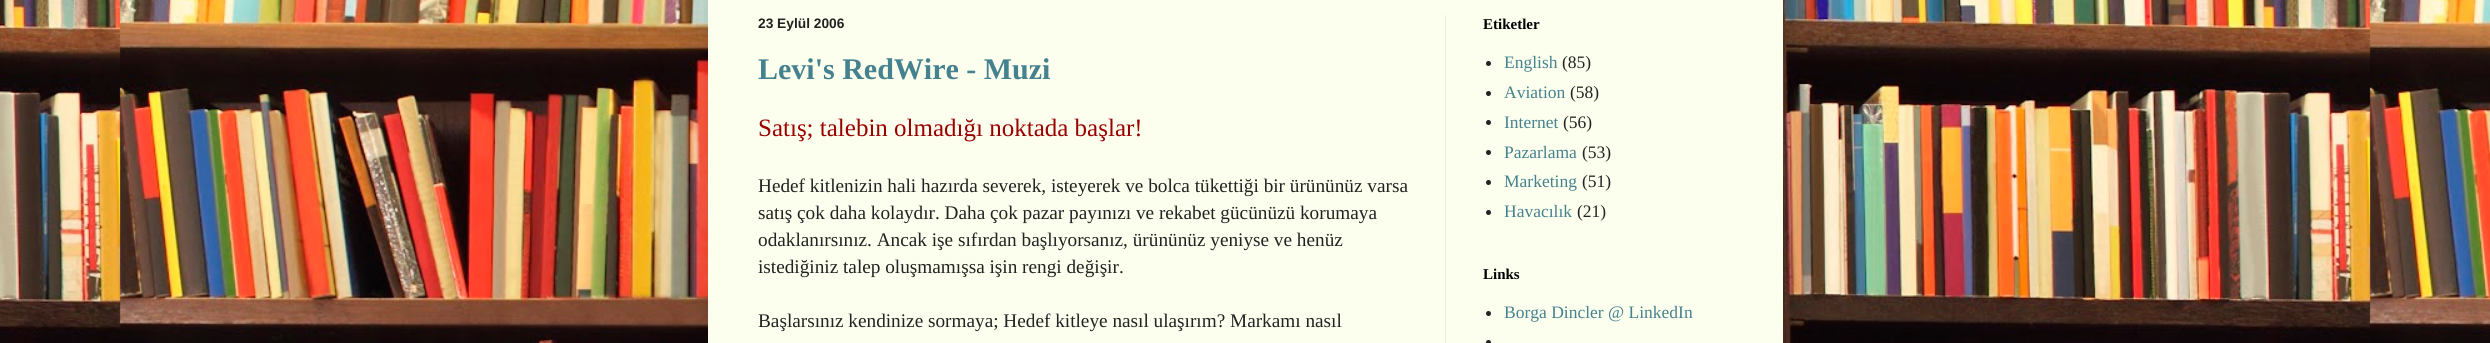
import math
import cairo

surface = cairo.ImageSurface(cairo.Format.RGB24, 2490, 343)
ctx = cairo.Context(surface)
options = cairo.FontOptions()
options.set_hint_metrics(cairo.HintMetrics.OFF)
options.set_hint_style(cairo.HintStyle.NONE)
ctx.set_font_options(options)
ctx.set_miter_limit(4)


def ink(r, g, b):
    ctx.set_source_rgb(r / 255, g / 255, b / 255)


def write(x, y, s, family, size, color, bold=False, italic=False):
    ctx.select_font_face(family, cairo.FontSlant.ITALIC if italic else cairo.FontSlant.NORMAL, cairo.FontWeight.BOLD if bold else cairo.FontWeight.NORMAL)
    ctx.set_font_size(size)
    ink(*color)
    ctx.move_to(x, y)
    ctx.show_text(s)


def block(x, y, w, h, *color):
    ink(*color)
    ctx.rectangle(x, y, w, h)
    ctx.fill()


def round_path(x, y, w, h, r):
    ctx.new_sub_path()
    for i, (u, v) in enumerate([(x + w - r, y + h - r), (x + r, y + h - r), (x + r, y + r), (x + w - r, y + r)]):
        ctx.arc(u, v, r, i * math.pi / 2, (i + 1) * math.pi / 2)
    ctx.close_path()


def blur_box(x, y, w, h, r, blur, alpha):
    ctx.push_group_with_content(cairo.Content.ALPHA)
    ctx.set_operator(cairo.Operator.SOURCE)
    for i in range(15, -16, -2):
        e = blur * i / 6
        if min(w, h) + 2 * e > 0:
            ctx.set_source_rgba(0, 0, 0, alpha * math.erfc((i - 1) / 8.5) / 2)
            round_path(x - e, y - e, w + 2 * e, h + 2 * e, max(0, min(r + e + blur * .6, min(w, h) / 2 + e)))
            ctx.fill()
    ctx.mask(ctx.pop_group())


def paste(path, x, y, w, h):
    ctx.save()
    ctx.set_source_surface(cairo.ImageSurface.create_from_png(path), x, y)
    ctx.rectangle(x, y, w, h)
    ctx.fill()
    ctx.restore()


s1 = dict(family="Liberation Sans", size=13.75, color=(34, 34, 34), bold=True)
s2 = dict(family="Liberation Serif", size=30, color=(69, 129, 142), bold=True)
s3 = dict(family="Liberation Serif", size=25, color=(153, 0, 0))
s4 = dict(family="Liberation Serif", size=19.25, color=(34, 34, 34))
s5 = dict(family="Liberation Serif", size=15, color=(0, 0, 0), bold=True)
s6 = dict(family="Liberation Serif", size=17.5, color=(69, 129, 142))
s7 = dict(family="Liberation Serif", size=17.5, color=(34, 34, 34))

ink(255, 255, 255)
ctx.paint()
paste("pic1.png", 0, 0, 2490, 343)
ink(0, 0, 0)
blur_box(708, -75, 1075, 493, 0, 25, 0.15)
block(708, 0, 1075, 343, 252, 255, 238)
block(1445, 15, 1, 328, 238, 237, 221)
write(758, 28, "23 Eylül 2006", **s1)
write(758, 79, "Levi's RedWire - Muzi", **s2)
write(758, 136, "Satış; talebin olmadığı noktada başlar!", **s3)
write(758, 192, "Hedef kitlenizin hali hazırda severek, isteyerek ve bolca tükettiği bir ürününüz varsa", **s4)
write(758, 219, "satış çok daha kolaydır. Daha çok pazar payınızı ve rekabet gücünüzü korumaya", **s4)
write(758, 246, "odaklanırsınız. Ancak işe sıfırdan başlıyorsanız, ürününüz yeniyse ve henüz", **s4)
write(758, 273, "istediğiniz talep oluşmamışsa işin rengi değişir.", **s4)
write(758, 327, "Başlarsınız kendinize sormaya; Hedef kitleye nasıl ulaşırım? Markamı nasıl", **s4)
write(1483, 29, "Etiketler", **s5)
ink(34, 34, 34)
ctx.new_path()
ctx.arc(1488.5, 63.5, 2.5, 0, 2 * math.pi)
ctx.fill()
write(1504, 68, "English", **s6)
write(1562, 68, "(85)", **s7)
ctx.new_path()
ctx.arc(1488.5, 93.5, 2.5, 0, 2 * math.pi)
ctx.fill()
write(1504, 98, "Aviation", **s6)
write(1570, 98, "(58)", **s7)
ctx.new_path()
ctx.arc(1488.5, 122.5, 2.5, 0, 2 * math.pi)
ctx.fill()
write(1504, 128, "Internet", **s6)
write(1563, 128, "(56)", **s7)
ctx.new_path()
ctx.arc(1488.5, 152.5, 2.5, 0, 2 * math.pi)
ctx.fill()
write(1504, 158, "Pazarlama", **s6)
write(1582, 158, "(53)", **s7)
ctx.new_path()
ctx.arc(1488.5, 182.5, 2.5, 0, 2 * math.pi)
ctx.fill()
write(1504, 187, "Marketing", **s6)
write(1582, 187, "(51)", **s7)
ctx.new_path()
ctx.arc(1488.5, 212.5, 2.5, 0, 2 * math.pi)
ctx.fill()
write(1504, 217, "Havacılık", **s6)
write(1577, 217, "(21)", **s7)
write(1483, 279, "Links", **s5)
ink(34, 34, 34)
ctx.new_path()
ctx.arc(1488.5, 313.5, 2.5, 0, 2 * math.pi)
ctx.fill()
write(1504, 318, "Borga Dincler @ LinkedIn", **s6)
ink(34, 34, 34)
ctx.new_path()
ctx.arc(1488.5, 342.5, 2.5, 0, 2 * math.pi)
ctx.fill()
surface.write_to_png("screenshot.png")
